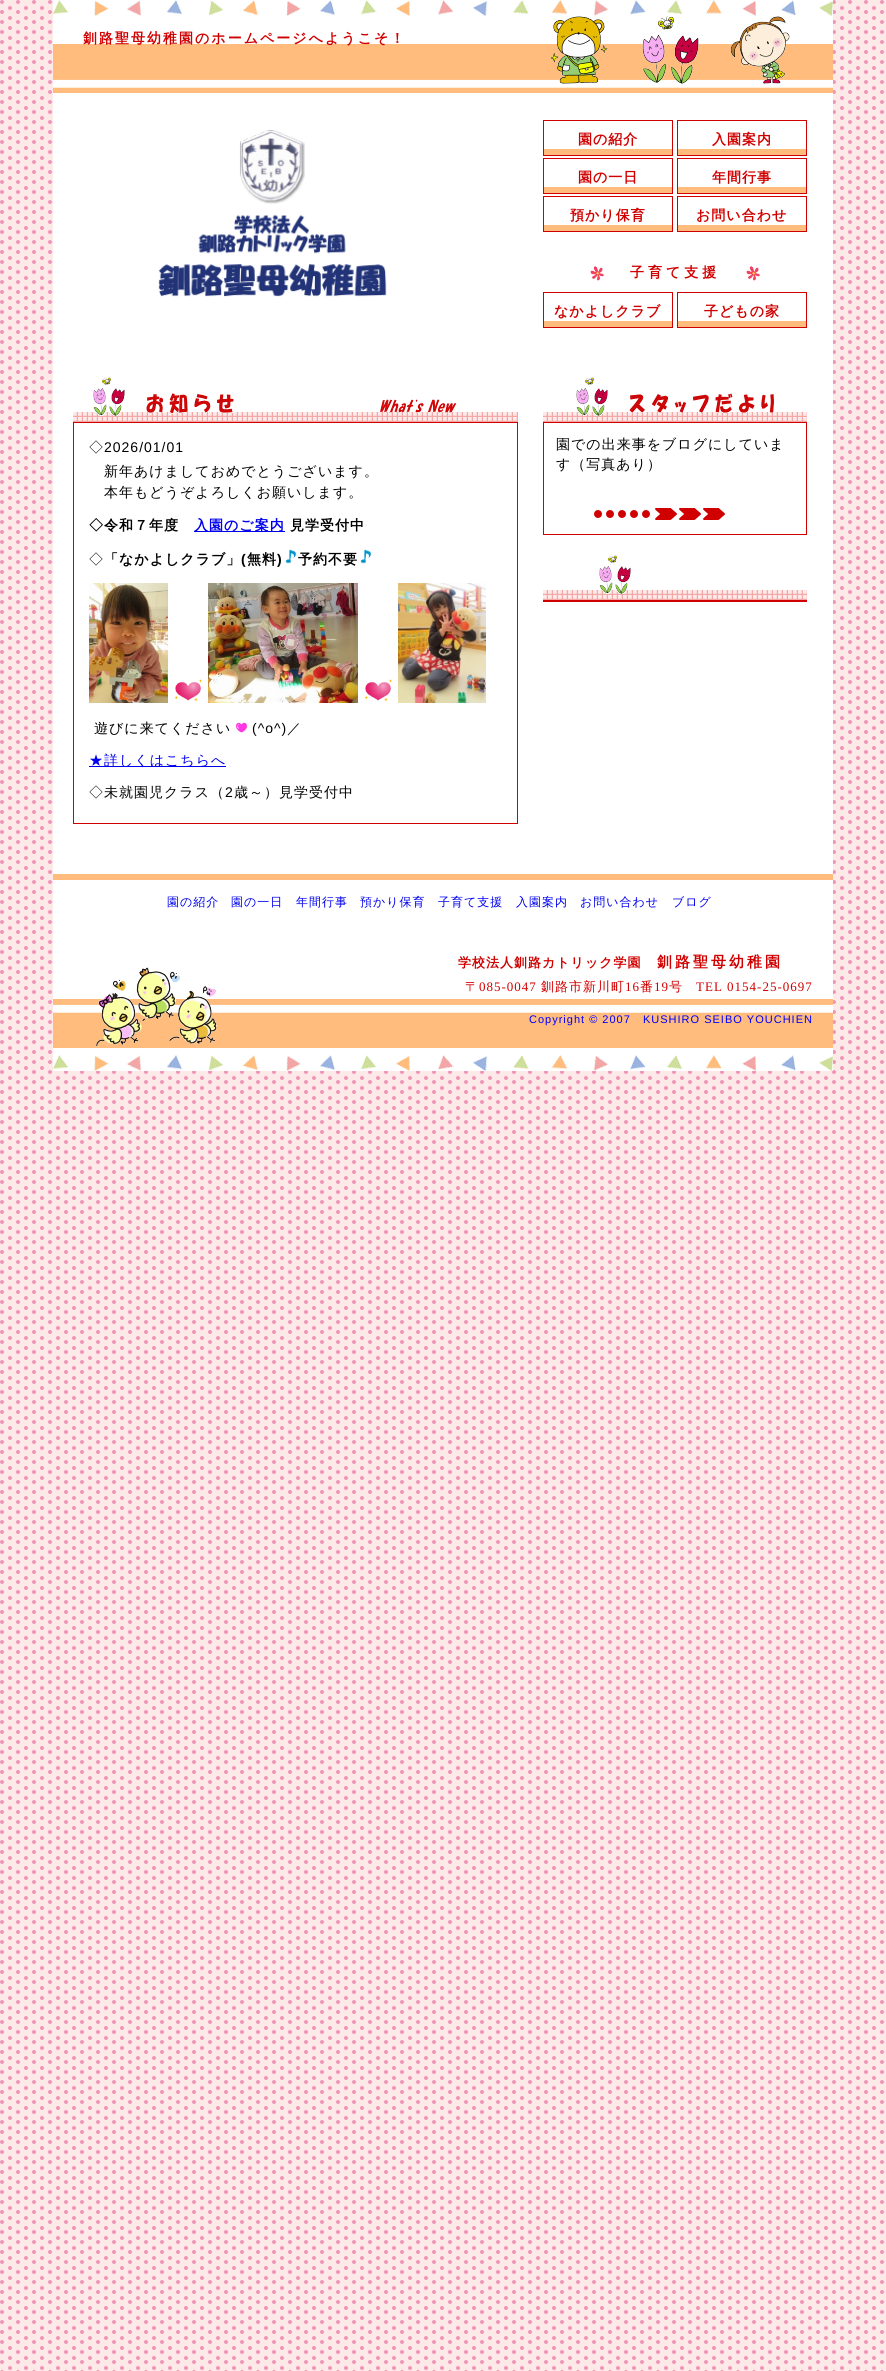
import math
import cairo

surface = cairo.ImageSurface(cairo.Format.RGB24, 886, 2371)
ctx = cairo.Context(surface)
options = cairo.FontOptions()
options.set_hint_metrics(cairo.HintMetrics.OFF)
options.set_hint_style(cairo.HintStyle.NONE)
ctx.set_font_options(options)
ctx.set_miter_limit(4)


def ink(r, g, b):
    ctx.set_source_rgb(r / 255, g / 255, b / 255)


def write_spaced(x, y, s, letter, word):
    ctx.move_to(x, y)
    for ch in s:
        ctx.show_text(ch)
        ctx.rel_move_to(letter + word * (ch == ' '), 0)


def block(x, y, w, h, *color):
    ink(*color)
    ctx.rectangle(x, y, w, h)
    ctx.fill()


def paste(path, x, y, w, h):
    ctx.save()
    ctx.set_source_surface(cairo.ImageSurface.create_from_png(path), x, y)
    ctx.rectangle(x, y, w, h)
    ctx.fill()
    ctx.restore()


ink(255, 255, 255)
ctx.paint()
paste("pic1.png", 0, 0, 886, 2371)
block(53, 0, 780, 874, 255, 255, 255)
paste("pic2.png", 53, 0, 780, 93)
ctx.select_font_face("WenQuanYi Zen Hei", cairo.FontSlant.NORMAL, cairo.FontWeight.BOLD)
ctx.set_font_size(14)
ink(209, 0, 0)
write_spaced(83, 43, "釧路聖母幼稚園のホームページへようこそ！", 2, 0)
paste("pic3.png", 158, 130, 229, 167)
block(543, 149, 130, 6, 255, 188, 125)
ctx.rectangle(543.5, 120.5, 129, 35)
ink(209, 0, 0)
ctx.set_line_width(1)
ctx.stroke()
write_spaced(578, 144, "園の紹介", 1, 0)
block(543, 187, 130, 6, 255, 188, 125)
ctx.rectangle(543.5, 158.5, 129, 35)
ink(209, 0, 0)
ctx.stroke()
write_spaced(578, 182, "園の一日", 1, 0)
block(543, 225, 130, 6, 255, 188, 125)
ctx.rectangle(543.5, 196.5, 129, 35)
ink(209, 0, 0)
ctx.stroke()
write_spaced(570, 220, "預かり保育", 1, 0)
block(677, 149, 130, 6, 255, 188, 125)
ctx.rectangle(677.5, 120.5, 129, 35)
ink(209, 0, 0)
ctx.stroke()
write_spaced(712, 144, "入園案内", 1, 0)
block(677, 187, 130, 6, 255, 188, 125)
ctx.rectangle(677.5, 158.5, 129, 35)
ink(209, 0, 0)
ctx.stroke()
write_spaced(712, 182, "年間行事", 1, 0)
block(677, 225, 130, 6, 255, 188, 125)
ctx.rectangle(677.5, 196.5, 129, 35)
ink(209, 0, 0)
ctx.stroke()
write_spaced(696, 220, "お問い合わせ", 1, 0)
paste("pic4.png", 590, 266, 170, 15)
write_spaced(630, 277, "子育て支援", 4, 0)
block(543, 321, 130, 6, 255, 188, 125)
ctx.rectangle(543.5, 292.5, 129, 35)
ink(209, 0, 0)
ctx.stroke()
write_spaced(554, 316, "なかよしクラブ", 1, 0)
block(677, 321, 130, 6, 255, 188, 125)
ctx.rectangle(677.5, 292.5, 129, 35)
ink(209, 0, 0)
ctx.stroke()
write_spaced(704, 316, "子どもの家", 1, 0)
paste("pic5.png", 73, 412, 445, 10)
paste("pic6.png", 93, 377, 364, 39)
ctx.rectangle(73.5, 422.5, 444, 401)
ctx.stroke()
ctx.select_font_face("WenQuanYi Zen Hei Medium")
ink(0, 0, 0)
write_spaced(89, 452, "◇", 1, 0)
ctx.select_font_face("Liberation Sans")
write_spaced(104, 452, "2026/01/01", 1, 0)
ctx.select_font_face("WenQuanYi Zen Hei Medium")
write_spaced(104, 476, "新年あけましておめでとうございます。", 1, 0)
write_spaced(104, 497, "本年もどうぞよろしくお願いします。", 1, 0)
ctx.select_font_face("WenQuanYi Zen Hei", cairo.FontSlant.NORMAL, cairo.FontWeight.BOLD)
write_spaced(89, 530, "◇令和７年度", 1, 0)
block(194, 531, 91, 1, 0, 0, 238)
write_spaced(194, 530, "入園のご案内", 1, 0)
ink(0, 0, 0)
write_spaced(290, 530, "見学受付中", 1, 0)
ctx.select_font_face("WenQuanYi Zen Hei Medium")
write_spaced(89, 564, "◇", 1, 0)
ctx.select_font_face("WenQuanYi Zen Hei", cairo.FontSlant.NORMAL, cairo.FontWeight.BOLD)
write_spaced(104, 564, "「なかよしクラブ」", 1, 0)
ctx.select_font_face("Liberation Sans", cairo.FontSlant.NORMAL, cairo.FontWeight.BOLD)
write_spaced(241, 564, "(", 1, 0)
ctx.select_font_face("WenQuanYi Zen Hei", cairo.FontSlant.NORMAL, cairo.FontWeight.BOLD)
write_spaced(247, 564, "無料", 1, 0)
ctx.select_font_face("Liberation Sans", cairo.FontSlant.NORMAL, cairo.FontWeight.BOLD)
write_spaced(277, 564, ")", 1, 0)
paste("pic7.png", 285, 549, 12, 15)
ctx.select_font_face("WenQuanYi Zen Hei", cairo.FontSlant.NORMAL, cairo.FontWeight.BOLD)
write_spaced(298, 564, "予約不要", 1, 0)
paste("pic7.png", 360, 549, 12, 15)
paste("pic8.png", 89, 583, 79, 120)
paste("pic9.png", 174, 679, 29, 23)
paste("pic10.png", 208, 583, 150, 120)
paste("pic9.png", 364, 679, 29, 23)
paste("pic11.png", 398, 583, 88, 120)
ctx.select_font_face("WenQuanYi Zen Hei Medium")
write_spaced(94, 733, "遊びに来てください", 1, 0)
paste("pic12.png", 236, 722, 11, 11)
ctx.select_font_face("Liberation Sans")
write_spaced(252, 733, "(^o^)", 1, 0)
ctx.select_font_face("WenQuanYi Zen Hei Medium")
write_spaced(287, 733, "／", 1, 0)
block(89, 766, 137, 1, 0, 0, 238)
write_spaced(89, 765, "★詳しくはこちらへ", 1, 0)
ink(0, 0, 0)
write_spaced(89, 797, "◇未就園児クラス（", 1, 0)
ctx.select_font_face("Liberation Sans")
write_spaced(225, 797, "2", 1, 0)
ctx.select_font_face("WenQuanYi Zen Hei Medium")
write_spaced(234, 797, "歳～）見学受付中", 1, 0)
paste("pic13.png", 543, 412, 264, 10)
paste("pic14.png", 576, 377, 198, 39)
ctx.rectangle(543.5, 422.5, 263, 112)
ink(209, 0, 0)
ctx.stroke()
ink(0, 0, 0)
write_spaced(556, 449, "園での出来事をブログにしていま", 1, 0)
write_spaced(556, 469, "す（写真あり）", 1, 0)
paste("pic15.png", 594, 508, 131, 12)
paste("pic13.png", 543, 590, 264, 10)
paste("pic16.png", 599, 555, 32, 39)
block(543, 600, 264, 2, 209, 0, 0)
block(53, 874, 780, 6, 255, 188, 125)
block(53, 880, 780, 191, 255, 255, 255)
ctx.set_font_size(12)
ink(0, 0, 238)
write_spaced(167, 906, "園の紹介", 1, 0)
write_spaced(231, 906, "園の一日", 1, 0)
write_spaced(296, 906, "年間行事", 1, 0)
write_spaced(360, 906, "預かり保育", 1, 0)
write_spaced(438, 906, "子育て支援", 1, 0)
write_spaced(516, 906, "入園案内", 1, 0)
write_spaced(580, 906, "お問い合わせ", 1, 0)
write_spaced(672, 906, "ブログ", 1, 0)
paste("pic17.png", 53, 967, 780, 104)
ctx.select_font_face("WenQuanYi Zen Hei", cairo.FontSlant.NORMAL, cairo.FontWeight.BOLD)
ctx.set_font_size(13)
ink(209, 0, 0)
write_spaced(458, 967, "学校法人釧路カトリック学園", 1, 0)
ctx.set_font_size(15)
write_spaced(657, 967, "釧路聖母幼稚園", 3, 0)
ctx.select_font_face("WenQuanYi Zen Hei Medium")
ctx.set_font_size(13)
write_spaced(465, 991, "〒", 1, 0)
ctx.select_font_face("Liberation Serif")
write_spaced(479, 991, "085-0047", 1, 0)
ctx.select_font_face("WenQuanYi Zen Hei Medium")
write_spaced(541, 991, "釧路市新川町", 1, 0)
ctx.select_font_face("Liberation Serif")
write_spaced(625, 991, "16", 1, 0)
ctx.select_font_face("WenQuanYi Zen Hei Medium")
write_spaced(640, 991, "番", 1, 0)
ctx.select_font_face("Liberation Serif")
write_spaced(654, 991, "19", 1, 0)
ctx.select_font_face("WenQuanYi Zen Hei Medium")
write_spaced(669, 991, "号", 1, 0)
ctx.select_font_face("Liberation Serif")
write_spaced(696, 991, "TEL 0154-25-0697", 1, 0)
ctx.select_font_face("Liberation Sans")
ctx.set_font_size(11)
ink(0, 0, 255)
write_spaced(529, 1023, "Copyright © 2007", 1, 0)
write_spaced(643, 1023, "KUSHIRO SEIBO YOUCHIEN", 1, 0)
surface.write_to_png("screenshot.png")
